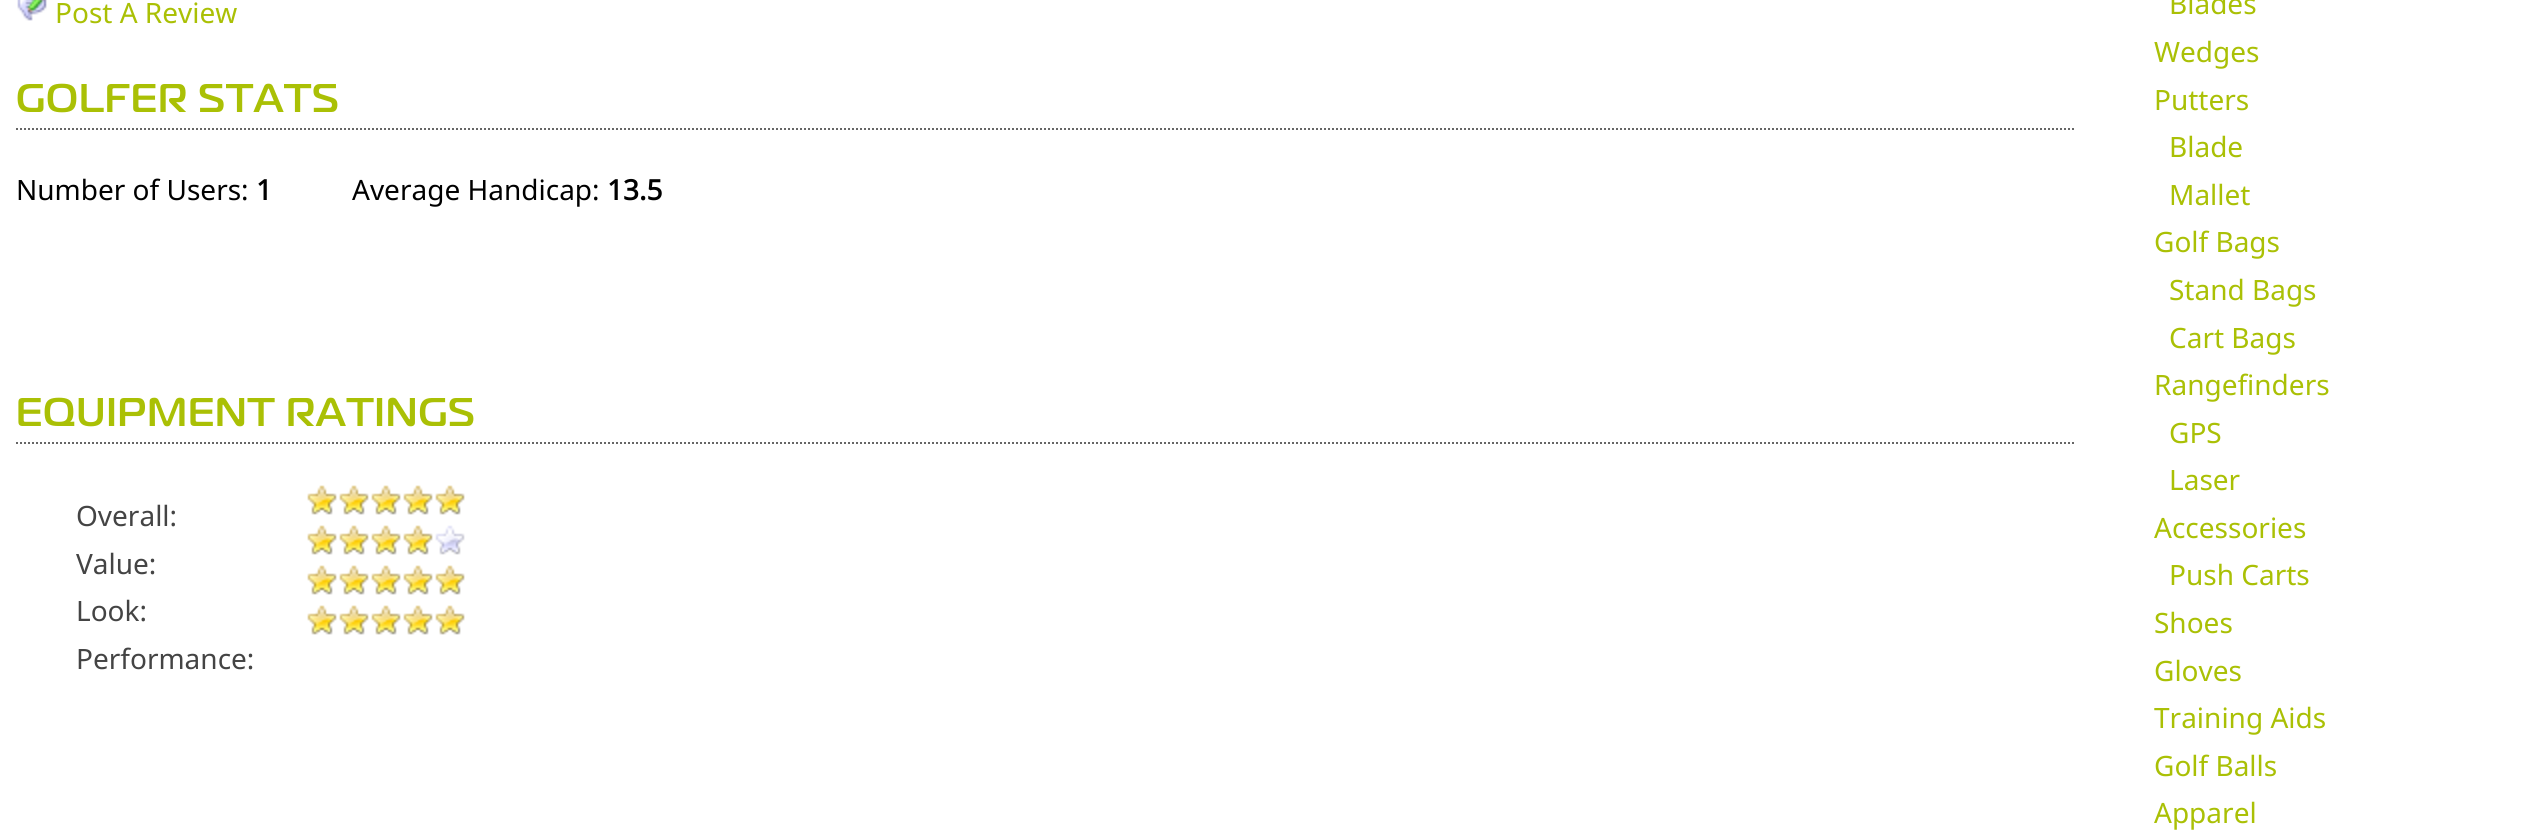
import math
import cairo

surface = cairo.ImageSurface(cairo.Format.RGB24, 2541, 838)
ctx = cairo.Context(surface)
options = cairo.FontOptions()
options.set_hint_metrics(cairo.HintMetrics.OFF)
options.set_hint_style(cairo.HintStyle.NONE)
ctx.set_font_options(options)
ctx.set_miter_limit(4)


def ink(r, g, b):
    ctx.set_source_rgb(r / 255, g / 255, b / 255)


def write(x, y, s, family, size, color, bold=False, italic=False):
    ctx.select_font_face(family, cairo.FontSlant.ITALIC if italic else cairo.FontSlant.NORMAL, cairo.FontWeight.BOLD if bold else cairo.FontWeight.NORMAL)
    ctx.set_font_size(size)
    ink(*color)
    ctx.move_to(x, y)
    ctx.show_text(s)


def write_spaced(x, y, s, letter, word):
    ctx.move_to(x, y)
    for ch in s:
        ctx.show_text(ch)
        ctx.rel_move_to(letter + word * (ch == ' '), 0)


def paste(path, x, y, w, h):
    ctx.save()
    ctx.set_source_surface(cairo.ImageSurface.create_from_png(path), x, y)
    ctx.rectangle(x, y, w, h)
    ctx.fill()
    ctx.restore()


s1 = dict(family="Noto Sans", size=28, color=(170, 192, 5))
s2 = dict(family="Noto Sans", size=28, color=(0, 0, 0))
s3 = dict(family="Noto Sans", size=28, color=(0, 0, 0), bold=True)
s4 = dict(family="Noto Sans", size=28, color=(68, 68, 68))

ink(255, 255, 255)
ctx.paint()
paste("pic1.png", 17, 0, 30, 21)
write(55, 23, "Post A Review", **s1)
ctx.new_path()
ctx.move_to(16, 129)
ctx.line_to(2074, 129)
ink(102, 102, 102)
ctx.set_dash([2, 2])
ctx.stroke()
ctx.select_font_face("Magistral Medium")
ctx.set_font_size(40)
ink(170, 192, 5)
write_spaced(16, 112, "GOLFER STATS", 1, 0)
write(16, 200, "Number of Users:", **s2)
write(256, 200, "1", **s3)
write(352, 200, "Average Handicap:", **s2)
write(607, 200, "13.5", **s3)
ctx.new_path()
ctx.move_to(16, 443)
ctx.line_to(2074, 443)
ink(102, 102, 102)
ctx.stroke()
ctx.select_font_face("Magistral Medium")
ctx.set_font_size(40)
ink(170, 192, 5)
write_spaced(16, 426, "EQUIPMENT RATINGS", 1, 0)
write(76, 526, "Overall:", **s4)
paste("pic2.png", 307, 485, 30, 30)
paste("pic2.png", 339, 485, 30, 30)
paste("pic2.png", 371, 485, 30, 30)
paste("pic2.png", 403, 485, 30, 30)
paste("pic2.png", 435, 485, 30, 30)
paste("pic2.png", 307, 525, 30, 30)
paste("pic2.png", 339, 525, 30, 30)
paste("pic2.png", 371, 525, 30, 30)
paste("pic2.png", 403, 525, 30, 30)
paste("pic3.png", 435, 525, 30, 30)
write(76, 574, "Value:", **s4)
paste("pic2.png", 307, 565, 30, 30)
paste("pic2.png", 339, 565, 30, 30)
paste("pic2.png", 371, 565, 30, 30)
paste("pic2.png", 403, 565, 30, 30)
paste("pic2.png", 435, 565, 30, 30)
write(76, 621, "Look:", **s4)
paste("pic2.png", 307, 605, 30, 30)
paste("pic2.png", 339, 605, 30, 30)
paste("pic2.png", 371, 605, 30, 30)
paste("pic2.png", 403, 605, 30, 30)
paste("pic2.png", 435, 605, 30, 30)
write(76, 669, "Performance:", **s4)
write(2169, 14, "Blades", **s1)
write(2154, 62, "Wedges", **s1)
write(2154, 110, "Putters", **s1)
write(2169, 157, "Blade", **s1)
write(2169, 205, "Mallet", **s1)
write(2154, 252, "Golf Bags", **s1)
write(2169, 300, "Stand Bags", **s1)
write(2169, 348, "Cart Bags", **s1)
write(2154, 395, "Rangefinders", **s1)
write(2169, 443, "GPS", **s1)
write(2169, 490, "Laser", **s1)
write(2154, 538, "Accessories", **s1)
write(2169, 585, "Push Carts", **s1)
write(2154, 633, "Shoes", **s1)
write(2154, 681, "Gloves", **s1)
write(2154, 728, "Training Aids", **s1)
write(2154, 776, "Golf Balls", **s1)
write(2154, 823, "Apparel", **s1)
surface.write_to_png("screenshot.png")
